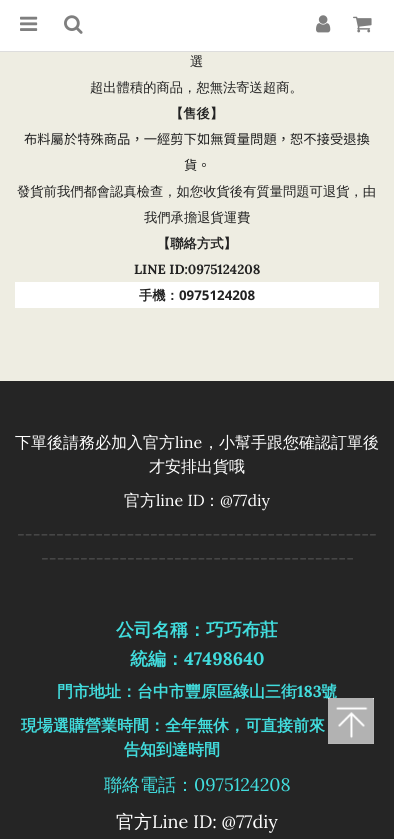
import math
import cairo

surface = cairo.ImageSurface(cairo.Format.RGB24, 394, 839)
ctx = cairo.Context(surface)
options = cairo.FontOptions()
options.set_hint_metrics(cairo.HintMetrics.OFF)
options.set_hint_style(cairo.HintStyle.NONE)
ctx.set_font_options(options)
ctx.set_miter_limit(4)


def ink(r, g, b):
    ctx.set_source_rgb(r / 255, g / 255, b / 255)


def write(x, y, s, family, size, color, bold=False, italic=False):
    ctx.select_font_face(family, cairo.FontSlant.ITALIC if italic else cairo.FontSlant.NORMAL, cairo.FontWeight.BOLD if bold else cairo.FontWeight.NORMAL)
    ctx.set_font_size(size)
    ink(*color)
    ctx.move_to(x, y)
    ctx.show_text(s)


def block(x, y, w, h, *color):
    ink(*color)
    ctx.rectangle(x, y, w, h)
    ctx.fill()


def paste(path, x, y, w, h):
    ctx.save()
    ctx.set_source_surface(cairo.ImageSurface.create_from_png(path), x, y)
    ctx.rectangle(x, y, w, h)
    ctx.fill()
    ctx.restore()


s1 = dict(family="WenQuanYi Zen Hei Medium", size=13.3, color=(34, 34, 34))
s2 = dict(family="WenQuanYi Zen Hei", size=13.3, color=(34, 34, 34), bold=True)
s3 = dict(family="Noto Sans CJK TC", size=13.3, color=(34, 34, 34))
s4 = dict(family="Lora", size=13.3, color=(34, 34, 34), bold=True)
s5 = dict(family="Open Sans", size=13.3, color=(34, 34, 34), bold=True)
s6 = dict(family="WenQuanYi Zen Hei Medium", size=16, color=(255, 255, 255))
s7 = dict(family="Lora", size=16, color=(255, 255, 255))
s8 = dict(family="Lora", size=16, color=(86, 86, 86))
s9 = dict(family="WenQuanYi Zen Hei", size=18, color=(65, 221, 222), bold=True)
s10 = dict(family="Lora", size=18, color=(65, 221, 222), bold=True)
s11 = dict(family="WenQuanYi Zen Hei", size=16, color=(65, 221, 222), bold=True)
s12 = dict(family="Lora", size=16, color=(65, 221, 222), bold=True)
s13 = dict(family="WenQuanYi Zen Hei Medium", size=18, color=(65, 221, 222))
s14 = dict(family="Lora", size=18, color=(65, 221, 222))
s15 = dict(family="WenQuanYi Zen Hei Medium", size=18, color=(255, 255, 255))
s16 = dict(family="Lora", size=18, color=(255, 255, 255))

ink(238, 237, 226)
ctx.paint()
block(0, 0, 394, 51, 255, 255, 255)
block(0, 51, 394, 1, 221, 221, 221)
paste("pic1.png", 20, 16, 18, 15)
paste("pic2.png", 64, 15, 19, 19)
paste("pic3.png", 316, 15, 15, 18)
paste("pic4.png", 353, 16, 19, 17)
write(190, 66, "選", **s1)
write(90, 92, "超出體積的商品，恕無法寄送超商。", **s1)
write(170, 118, "【售後】", **s2)
write(24, 144, "布料屬於特殊商品，一經剪下如無質量問題，恕不接受退換", **s3)
write(184, 170, "貨。", **s3)
write(17, 196, "發貨前我們都會認真檢查，如您收貨後有質量問題可退貨，由", **s1)
write(144, 222, "我們承擔退貨運費", **s1)
write(157, 248, "【聯絡方式】", **s2)
write(134, 274, "LINE ID:0975124208", **s4)
block(15, 282, 364, 26, 255, 255, 255)
write(139, 300, "手機：", **s2)
write(179, 300, "0975124208", **s5)
block(0, 381, 394, 458, 37, 37, 37)
write(15, 448, "下單後請務必加入官方", **s6)
write(175, 448, "line", **s7)
write(203, 448, "，小幫手跟您確認訂單後", **s6)
write(149, 472, "才安排出貨哦", **s6)
write(124, 506, "官方", **s6)
write(156, 506, "line ID", **s7)
write(204, 506, "：", **s6)
write(220, 506, "@77diy", **s7)
write(17, 540, "----------------------------------------------", **s8)
write(41, 564, "----------------------------------------", **s8)
write(116, 636, "公司名稱：巧巧布莊", **s9)
write(130, 665, "統編：", **s9)
write(184, 665, "47498640", **s10)
write(57, 697, "門市地址：台中市豐原區綠山三街", **s11)
write(297, 697, "183", **s12)
write(321, 697, "號", **s11)
write(21, 731, "現場選購營業時間：全年無休，可直接前來", **s11)
write(124, 755, "告知到達時間", **s11)
write(104, 791, "聯絡電話：", **s13)
write(194, 791, "0975124208", **s14)
write(116, 828, "官方", **s15)
write(152, 828, "Line ID: @77diy", **s16)
paste("pic5.png", 328, 698, 46, 46)
surface.write_to_png("screenshot.png")
